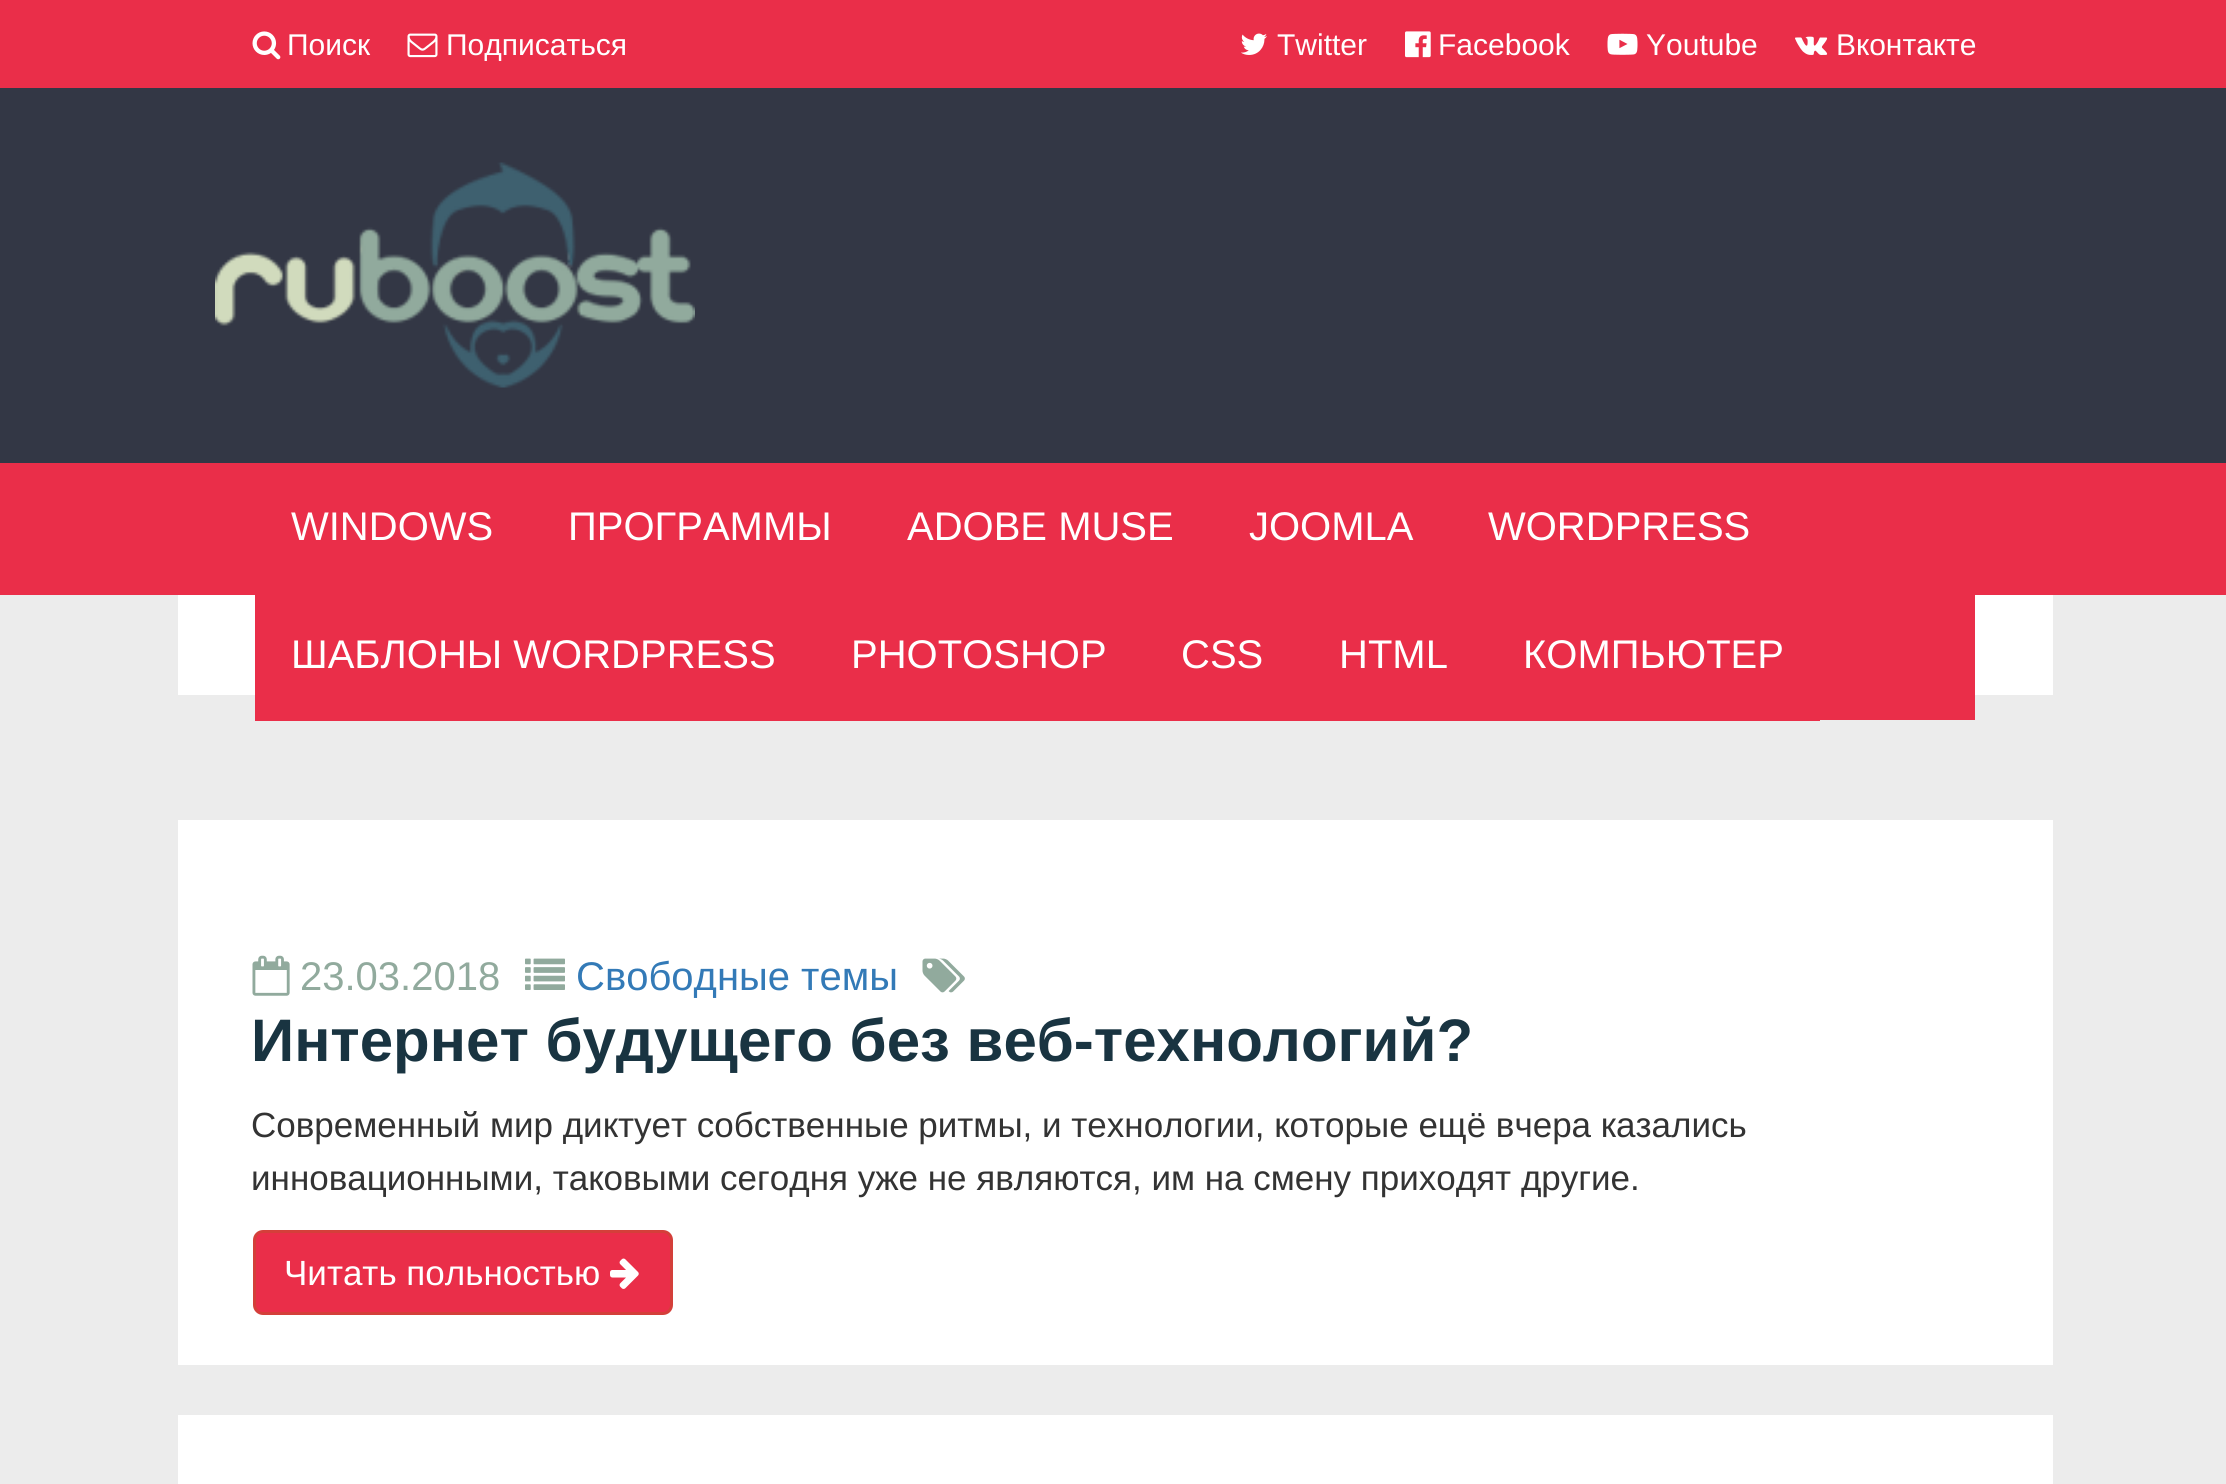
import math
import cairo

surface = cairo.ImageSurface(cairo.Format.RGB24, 2226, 1484)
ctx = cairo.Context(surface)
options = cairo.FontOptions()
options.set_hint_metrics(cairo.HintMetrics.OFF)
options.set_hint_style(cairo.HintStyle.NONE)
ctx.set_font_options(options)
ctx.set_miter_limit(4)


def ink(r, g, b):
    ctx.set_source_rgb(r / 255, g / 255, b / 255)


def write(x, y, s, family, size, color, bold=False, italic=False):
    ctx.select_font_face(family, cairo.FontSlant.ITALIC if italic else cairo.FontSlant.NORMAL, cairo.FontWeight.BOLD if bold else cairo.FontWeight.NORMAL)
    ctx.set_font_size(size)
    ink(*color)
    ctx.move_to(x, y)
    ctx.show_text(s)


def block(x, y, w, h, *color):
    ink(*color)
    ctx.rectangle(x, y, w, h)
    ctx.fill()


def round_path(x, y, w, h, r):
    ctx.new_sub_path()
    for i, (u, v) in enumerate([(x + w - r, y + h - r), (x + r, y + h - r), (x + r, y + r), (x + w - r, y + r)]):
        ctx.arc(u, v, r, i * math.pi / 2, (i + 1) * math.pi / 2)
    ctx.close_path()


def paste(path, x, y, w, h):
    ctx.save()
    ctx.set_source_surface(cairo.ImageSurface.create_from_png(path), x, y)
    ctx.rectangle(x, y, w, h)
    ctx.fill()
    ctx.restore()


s1 = dict(family="Liberation Sans", size=30, color=(255, 255, 255))
s2 = dict(family="Liberation Sans", size=40, color=(255, 255, 255))
s3 = dict(family="Liberation Sans", size=40, color=(145, 170, 157))
s4 = dict(family="Liberation Sans", size=40, color=(51, 122, 183))
s5 = dict(family="Liberation Sans", size=60, color=(25, 52, 65), bold=True)
s6 = dict(family="Liberation Sans", size=35, color=(51, 51, 51))
s7 = dict(family="Liberation Sans", size=35, color=(255, 255, 255))

ink(236, 236, 236)
ctx.paint()
block(0, 0, 2226, 88, 234, 46, 73)
paste("pic1.png", 252, 31, 29, 29)
write(287, 55, "Поиск", **s1)
paste("pic2.png", 407, 33, 31, 25)
write(446, 55, "Подписаться", **s1)
paste("pic3.png", 1241, 33, 26, 22)
write(1277, 55, "Twitter", **s1)
paste("pic4.png", 1405, 31, 26, 27)
write(1438, 55, "Facebook", **s1)
paste("pic5.png", 1607, 33, 31, 22)
write(1646, 55, "Youtube", **s1)
paste("pic6.png", 1795, 36, 33, 19)
write(1836, 55, "Вконтакте", **s1)
block(0, 88, 2226, 375, 51, 55, 69)
paste("pic7.png", 215, 162, 480, 226)
block(0, 463, 2226, 132, 234, 46, 73)
block(178, 595, 1875, 100, 255, 255, 255)
block(255, 595, 1720, 125, 234, 46, 73)
write(291, 540, "WINDOWS", **s2)
write(568, 540, "ПРОГРАММЫ", **s2)
write(907, 540, "ADOBE MUSE", **s2)
write(1249, 540, "JOOMLA", **s2)
write(1488, 540, "WORDPRESS", **s2)
block(255, 720, 1565, 1, 234, 46, 73)
write(291, 668, "ШАБЛОНЫ WORDPRESS", **s2)
write(851, 668, "PHOTOSHOP", **s2)
write(1181, 668, "CSS", **s2)
write(1339, 668, "HTML", **s2)
write(1523, 668, "КОМПЬЮТЕР", **s2)
block(178, 820, 1875, 545, 255, 255, 255)
paste("pic8.png", 252, 955, 38, 41)
write(300, 990, "23.03.2018", **s3)
paste("pic9.png", 525, 958, 40, 32)
write(576, 990, "Свободные темы", **s4)
paste("pic10.png", 922, 958, 43, 35)
write(251, 1061, "Интернет будущего без веб-технологий?", **s5)
write(251, 1137, "Современный мир диктует собственные ритмы, и технологии, которые ещё вчера казались", **s6)
write(251, 1190, "инновационными, таковыми сегодня уже не являются, им на смену приходят другие.", **s6)
ink(234, 46, 73)
round_path(254.5, 1231.5, 417, 82, 8.5)
ctx.fill_preserve()
ink(212, 63, 58)
ctx.set_line_width(3)
ctx.stroke()
write(284, 1285, "Читать польностью", **s7)
paste("pic11.png", 610, 1258, 29, 31)
block(178, 1415, 1875, 69, 255, 255, 255)
surface.write_to_png("screenshot.png")
